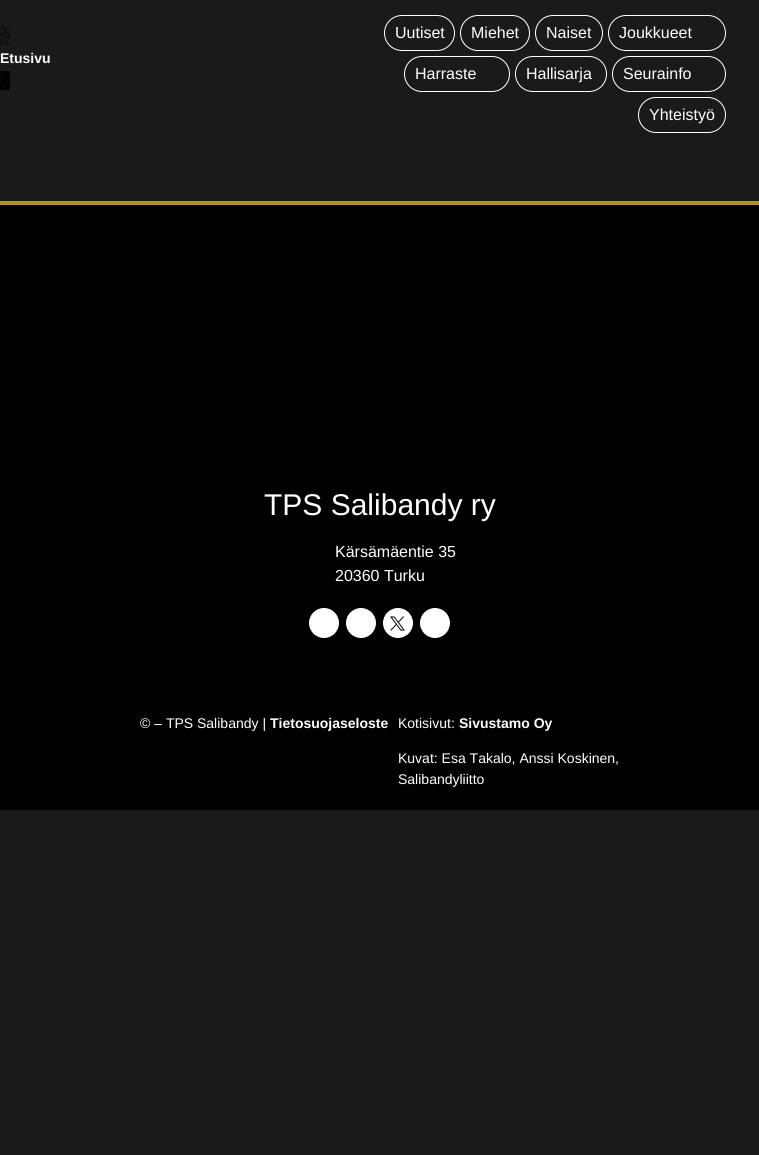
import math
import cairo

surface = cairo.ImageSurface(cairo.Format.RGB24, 759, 1155)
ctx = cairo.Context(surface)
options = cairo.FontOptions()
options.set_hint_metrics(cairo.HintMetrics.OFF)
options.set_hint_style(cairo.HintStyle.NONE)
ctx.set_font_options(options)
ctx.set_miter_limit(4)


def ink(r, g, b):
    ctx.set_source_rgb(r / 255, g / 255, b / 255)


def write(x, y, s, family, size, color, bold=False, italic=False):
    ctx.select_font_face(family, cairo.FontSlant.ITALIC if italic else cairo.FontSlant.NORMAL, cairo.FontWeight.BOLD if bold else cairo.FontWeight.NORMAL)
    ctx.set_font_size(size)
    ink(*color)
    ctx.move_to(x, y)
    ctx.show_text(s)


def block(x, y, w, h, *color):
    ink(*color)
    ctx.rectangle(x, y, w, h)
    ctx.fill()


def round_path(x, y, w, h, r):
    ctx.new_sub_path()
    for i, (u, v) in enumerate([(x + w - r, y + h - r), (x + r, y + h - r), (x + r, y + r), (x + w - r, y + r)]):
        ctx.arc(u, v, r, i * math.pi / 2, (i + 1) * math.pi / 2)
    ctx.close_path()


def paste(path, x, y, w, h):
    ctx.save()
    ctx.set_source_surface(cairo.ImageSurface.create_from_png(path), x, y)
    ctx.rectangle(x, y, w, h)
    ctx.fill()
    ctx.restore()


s1 = dict(family="Liberation Sans", size=14, color=(255, 255, 255), bold=True)
s2 = dict(family="Liberation Sans", size=16, color=(255, 255, 255))
s3 = dict(family="Liberation Sans", size=30, color=(255, 255, 255))
s4 = dict(family="Liberation Sans", size=14, color=(255, 255, 255))

ink(26, 26, 26)
ctx.paint()
paste("pic1.png", 0, 26, 10, 64)
write(0, 63, "Etusivu", **s1)
round_path(384.5, 15.5, 70, 35, 17.5)
ctx.set_line_width(1)
ctx.stroke()
write(395, 38, "Uutiset", **s2)
round_path(460.5, 15.5, 69, 35, 17.5)
ctx.stroke()
write(471, 38, "Miehet", **s2)
round_path(535.5, 15.5, 67, 35, 17.5)
ctx.stroke()
write(546, 38, "Naiset", **s2)
round_path(608.5, 15.5, 117, 35, 17.5)
ctx.stroke()
write(619, 38, "Joukkueet", **s2)
round_path(404.5, 56.5, 105, 35, 17.5)
ctx.stroke()
write(415, 79, "Harraste", **s2)
round_path(515.5, 56.5, 91, 35, 17.5)
ctx.stroke()
write(526, 79, "Hallisarja", **s2)
round_path(612.5, 56.5, 113, 35, 17.5)
ctx.stroke()
write(623, 79, "Seurainfo", **s2)
round_path(638.5, 97.5, 87, 35, 17.5)
ctx.stroke()
write(649, 120, "Yhteistyö", **s2)
block(0, 205, 759, 605, 0, 0, 0)
block(0, 201, 759, 4, 181, 148, 16)
write(264, 515, "TPS Salibandy ry", **s3)
write(335, 557, "Kärsämäentie 35", **s2)
write(335, 581, "20360 Turku", **s2)
ctx.new_path()
ctx.arc(324, 623, 15, 0, 2 * math.pi)
ctx.fill()
ctx.arc(361, 623, 15, 0, 2 * math.pi)
ctx.fill()
ctx.arc(398, 623, 15, 0, 2 * math.pi)
ctx.fill()
paste("pic2.png", 390, 616, 15, 15)
ctx.arc(435, 623, 15, 0, 2 * math.pi)
ctx.fill()
write(140, 728, "© – TPS Salibandy |", **s4)
write(270, 728, "Tietosuojaseloste", **s1)
write(398, 728, "Kotisivut:", **s4)
write(459, 728, "Sivustamo Oy", **s1)
write(398, 763, "Kuvat: Esa Takalo, Anssi Koskinen,", **s4)
write(398, 784, "Salibandyliitto", **s4)
surface.write_to_png("screenshot.png")
